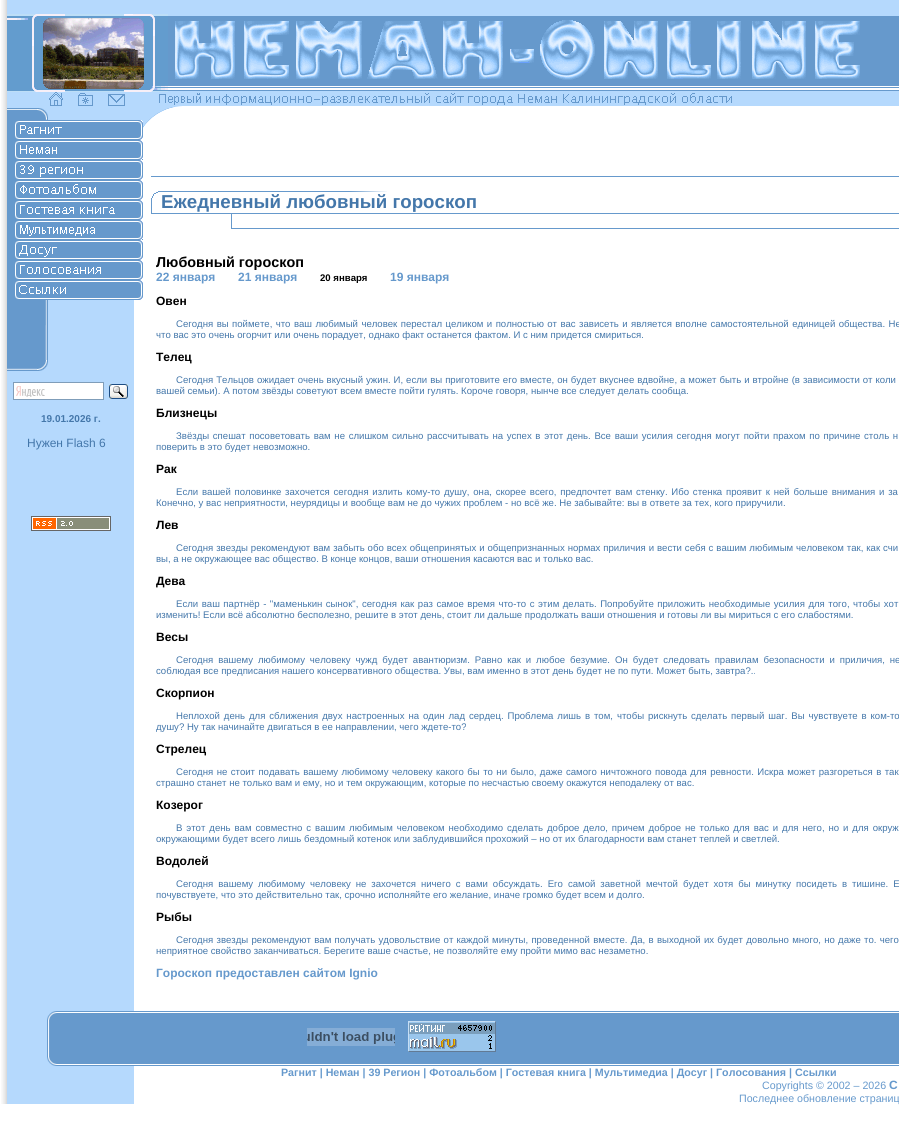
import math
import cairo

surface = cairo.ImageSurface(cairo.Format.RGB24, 899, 1143)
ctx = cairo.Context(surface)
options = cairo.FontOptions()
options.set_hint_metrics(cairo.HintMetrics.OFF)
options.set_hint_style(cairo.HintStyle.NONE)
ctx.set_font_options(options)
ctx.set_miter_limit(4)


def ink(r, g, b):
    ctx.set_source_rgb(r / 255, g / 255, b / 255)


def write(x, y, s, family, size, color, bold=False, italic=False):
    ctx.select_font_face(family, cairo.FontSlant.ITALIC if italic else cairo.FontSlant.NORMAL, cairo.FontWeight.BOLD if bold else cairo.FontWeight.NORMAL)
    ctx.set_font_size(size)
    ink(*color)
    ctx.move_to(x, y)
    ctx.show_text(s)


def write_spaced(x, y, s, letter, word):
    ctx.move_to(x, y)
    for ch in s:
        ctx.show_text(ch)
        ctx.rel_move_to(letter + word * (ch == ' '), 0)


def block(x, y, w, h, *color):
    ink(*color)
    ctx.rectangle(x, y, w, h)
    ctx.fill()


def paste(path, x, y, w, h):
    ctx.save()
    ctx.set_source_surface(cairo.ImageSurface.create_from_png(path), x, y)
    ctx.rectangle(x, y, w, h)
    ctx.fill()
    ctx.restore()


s1 = dict(family="Liberation Sans", size=10, color=(68, 119, 170), bold=True)
s2 = dict(family="Liberation Sans", size=12, color=(68, 119, 170))
s3 = dict(family="Liberation Sans", size=18.7, color=(68, 119, 170), bold=True)
s4 = dict(family="Liberation Sans", size=14.4, color=(0, 0, 0), bold=True)
s5 = dict(family="Liberation Sans", size=12, color=(102, 153, 204), bold=True)
s6 = dict(family="Liberation Sans", size=9.6, color=(0, 0, 0), bold=True)
s7 = dict(family="Liberation Sans", size=12, color=(0, 0, 0), bold=True)
s8 = dict(family="Liberation Sans", size=9.6, color=(68, 119, 170))
s9 = dict(family="Liberation Sans", size=10.67, color=(102, 153, 204), bold=True)
s10 = dict(family="Liberation Sans", size=10.67, color=(102, 153, 204))

ink(255, 255, 255)
ctx.paint()
paste("pic1.png", 1, 0, 6, 1104)
block(7, 0, 892, 16, 181, 217, 253)
block(168, 16, 731, 70, 102, 153, 204)
block(168, 87, 731, 1, 102, 153, 204)
block(168, 90, 731, 1, 102, 153, 204)
block(7, 91, 892, 15, 181, 217, 253)
paste("pic2.png", 49, 92, 683, 14)
paste("pic3.png", 7, 14, 161, 78)
paste("pic4.png", 175, 20, 685, 60)
block(7, 106, 127, 905, 181, 217, 253)
paste("pic14.png", 7, 108, 41, 263)
paste("pic18.png", 134, 106, 48, 22)
paste("pic5.png", 15, 120, 128, 20)
paste("pic6.png", 15, 140, 128, 20)
paste("pic7.png", 15, 160, 128, 20)
paste("pic8.png", 15, 180, 128, 20)
paste("pic9.png", 15, 200, 128, 20)
paste("pic10.png", 15, 220, 128, 20)
paste("pic11.png", 15, 240, 128, 20)
paste("pic12.png", 15, 260, 128, 20)
paste("pic13.png", 15, 280, 128, 20)
block(14, 383, 89, 16, 255, 255, 255)
paste("pic15.png", 16, 386, 29, 11)
ctx.rectangle(13.5, 382.5, 90, 17)
ink(127, 157, 185)
ctx.set_line_width(1)
ctx.stroke()
paste("pic16.png", 109, 384, 19, 15)
write(41, 422, "19.01.2026 г.", **s1)
write(27, 447, "Нужен Flash 6", **s2)
paste("pic17.png", 31, 516, 80, 15)
block(151, 176, 748, 1, 102, 153, 204)
paste("pic19.png", 151, 191, 236, 22)
write(161, 208, "Ежедневный любовный гороскоп", **s3)
block(151, 213, 748, 1, 102, 153, 204)
block(231, 214, 1, 15, 102, 153, 204)
block(232, 228, 667, 1, 102, 153, 204)
write(156, 267, "Любовный гороскоп", **s4)
write(156, 281, "22 января", **s5)
write(238, 281, "21 января", **s5)
write(320, 281, "20 января", **s6)
write(390, 281, "19 января", **s5)
write(156, 305, "Овен", **s7)
ctx.select_font_face("Liberation Sans")
ctx.set_font_size(9.6)
ink(68, 119, 170)
write_spaced(176, 327, "Сегодня вы поймете, что ваш любимый человек перестал целиком и полностью от вас зависеть и является вполне самостоятельной единицей общества. Не", 0, 0.75)
write(156, 338, "что вас это очень огорчит или очень порадует, однако факт останется фактом. И с ним придется смириться.", **s8)
write(156, 361, "Телец", **s7)
ctx.select_font_face("Liberation Sans")
ctx.set_font_size(9.6)
ink(68, 119, 170)
write_spaced(176, 383, "Сегодня Тельцов ожидает очень вкусный ужин. И, если вы приготовите его вместе, он будет вкуснее вдвойне, а может быть и втройне (в зависимости от коли", 0, 0.3)
write(156, 394, "вашей семьи). А потом звёзды советуют всем вместе пойти гулять. Короче говоря, нынче все следует делать сообща.", **s8)
write(156, 417, "Близнецы", **s7)
ctx.select_font_face("Liberation Sans")
ctx.set_font_size(9.6)
ink(68, 119, 170)
write_spaced(176, 439, "Звёзды спешат посоветовать вам не слишком сильно рассчитывать на успех в этот день. Все ваши усилия сегодня могут пойти прахом по причине столь н", 0, 1)
write(156, 450, "поверить в это будет невозможно.", **s8)
write(156, 473, "Рак", **s7)
ctx.select_font_face("Liberation Sans")
ctx.set_font_size(9.6)
ink(68, 119, 170)
write_spaced(176, 495, "Если вашей половинке захочется сегодня излить кому-то душу, она, скорее всего, предпочтет вам стенку. Ибо стенка проявит к ней больше внимания и за", 0, 1.1)
write(156, 506, "Конечно, у вас неприятности, неурядицы и вообще вам не до чужих проблем - но всё же. Не забывайте: вы в ответе за тех, кого приручили.", **s8)
write(156, 529, "Лев", **s7)
ctx.select_font_face("Liberation Sans")
ctx.set_font_size(9.6)
ink(68, 119, 170)
write_spaced(176, 551, "Сегодня звезды рекомендуют вам забыть обо всех общепринятых и общепризнанных нормах приличия и вести себя с вашим любимым человеком так, как счи", 0, 0.25)
write(156, 562, "вы, а не окружающее вас общество. В конце концов, ваши отношения касаются вас и только вас.", **s8)
write(156, 585, "Дева", **s7)
ctx.select_font_face("Liberation Sans")
ctx.set_font_size(9.6)
ink(68, 119, 170)
write_spaced(176, 607, "Если ваш партнёр - \"маменькин сынок\", сегодня как раз самое время что-то с этим делать. Попробуйте приложить необходимые усилия для того, чтобы хот", 0, 0.85)
write(156, 618, "изменить! Если всё абсолютно бесполезно, решите в этот день, стоит ли дальше продолжать ваши отношения и готовы ли вы мириться с его слабостями.", **s8)
write(156, 641, "Весы", **s7)
ctx.select_font_face("Liberation Sans")
ctx.set_font_size(9.6)
ink(68, 119, 170)
write_spaced(176, 663, "Сегодня вашему любимому человеку чужд будет авантюризм. Равно как и любое безумие. Он будет следовать правилам безопасности и приличия, не", 0, 2.25)
write(156, 674, "соблюдая все предписания нашего консервативного общества. Увы, вам именно в этот день будет не по пути. Может быть, завтра?..", **s8)
write(156, 697, "Скорпион", **s7)
ctx.select_font_face("Liberation Sans")
ctx.set_font_size(9.6)
ink(68, 119, 170)
write_spaced(176, 719, "Неплохой день для сближения двух настроенных на один лад сердец. Проблема лишь в том, чтобы рискнуть сделать первый шаг. Вы чувствуете в ком-то", 0, 1.25)
write(156, 730, "душу? Ну так начинайте двигаться в ее направлении, чего ждете-то?", **s8)
write(156, 753, "Стрелец", **s7)
ctx.select_font_face("Liberation Sans")
ctx.set_font_size(9.6)
ink(68, 119, 170)
write_spaced(176, 775, "Сегодня не стоит подавать вашему любимому человеку какого бы то ни было, даже самого ничтожного повода для ревности. Искра может разгореться в так", 0, 0.75)
write(156, 786, "страшно станет не только вам и ему, но и тем окружающим, которые по несчастью своему окажутся неподалеку от вас.", **s8)
write(156, 809, "Козерог", **s7)
ctx.select_font_face("Liberation Sans")
ctx.set_font_size(9.6)
ink(68, 119, 170)
write_spaced(176, 831, "В этот день вам совместно с вашим любимым человеком необходимо сделать доброе дело, причем доброе не только для вас и для него, но и для окруж", 0, 1.25)
write(156, 842, "окружающими будет всего лишь бездомный котенок или заблудившийся прохожий – но от их благодарности вам станет теплей и светлей.", **s8)
write(156, 865, "Водолей", **s7)
ctx.select_font_face("Liberation Sans")
ctx.set_font_size(9.6)
ink(68, 119, 170)
write_spaced(176, 887, "Сегодня вашему любимому человеку не захочется ничего с вами обсуждать. Его самой заветной мечтой будет хотя бы минутку посидеть в тишине. Е", 0, 2.3)
write(156, 898, "почувствуете, что это действительно так, срочно исполняйте его желание, иначе громко будет всем и долго.", **s8)
write(156, 921, "Рыбы", **s7)
ctx.select_font_face("Liberation Sans")
ctx.set_font_size(9.6)
ink(68, 119, 170)
write_spaced(176, 943, "Сегодня звезды рекомендуют вам получать удовольствие от каждой минуты, проведенной вместе. Да, в выходной их будет довольно много, но даже то. чего", 0, 0.6)
write(156, 954, "неприятное свойство заканчиваться. Берегите ваше счастье, не позволяйте ему пройти мимо вас незаметно.", **s8)
write(156, 977, "Гороскоп предоставлен сайтом Ignio", **s5)
block(7, 1011, 40, 55, 181, 217, 253)
paste("pic20.png", 47, 1011, 87, 10)
block(134, 1011, 765, 1, 102, 153, 204)
block(134, 1013, 765, 51, 102, 153, 204)
paste("pic21.png", 47, 1021, 87, 34)
paste("pic22.png", 307, 1028, 88, 18)
paste("pic23.png", 408, 1021, 88, 31)
paste("pic24.png", 47, 1055, 87, 11)
block(134, 1065, 765, 1, 102, 153, 204)
block(7, 1066, 127, 38, 181, 217, 253)
write(281, 1076, "Рагнит | Неман | 39 Регион | Фотоальбом | Гостевая книга | Мультимедиа | Досуг | Голосования | Ссылки", **s9)
write(762, 1089, "Copyrights © 2002 – 2026", **s10)
write(889, 1089, "С", **s5)
write(739, 1102, "Последнее обновление страниц", **s10)
surface.write_to_png("screenshot.png")
